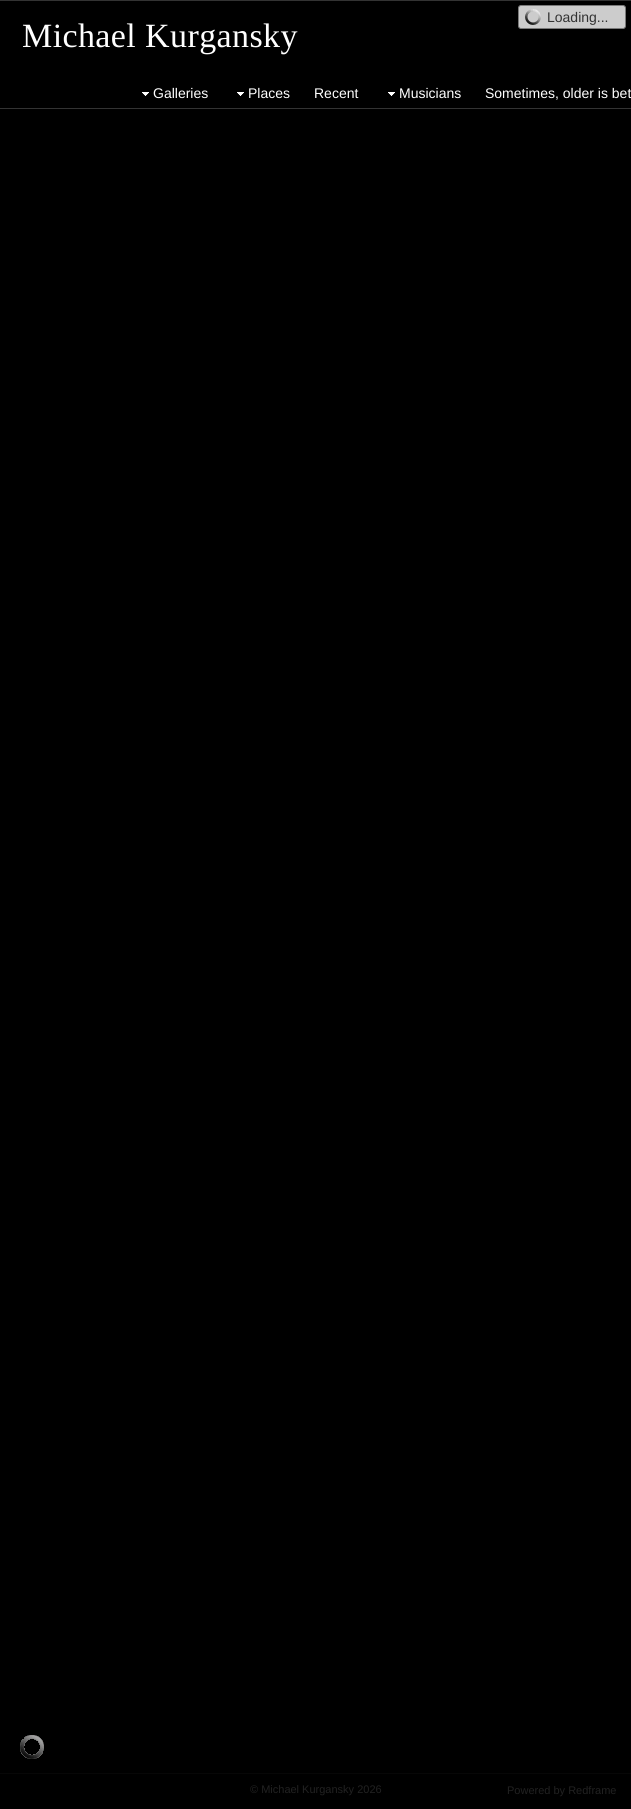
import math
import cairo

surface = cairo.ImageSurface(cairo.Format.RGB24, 631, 1809)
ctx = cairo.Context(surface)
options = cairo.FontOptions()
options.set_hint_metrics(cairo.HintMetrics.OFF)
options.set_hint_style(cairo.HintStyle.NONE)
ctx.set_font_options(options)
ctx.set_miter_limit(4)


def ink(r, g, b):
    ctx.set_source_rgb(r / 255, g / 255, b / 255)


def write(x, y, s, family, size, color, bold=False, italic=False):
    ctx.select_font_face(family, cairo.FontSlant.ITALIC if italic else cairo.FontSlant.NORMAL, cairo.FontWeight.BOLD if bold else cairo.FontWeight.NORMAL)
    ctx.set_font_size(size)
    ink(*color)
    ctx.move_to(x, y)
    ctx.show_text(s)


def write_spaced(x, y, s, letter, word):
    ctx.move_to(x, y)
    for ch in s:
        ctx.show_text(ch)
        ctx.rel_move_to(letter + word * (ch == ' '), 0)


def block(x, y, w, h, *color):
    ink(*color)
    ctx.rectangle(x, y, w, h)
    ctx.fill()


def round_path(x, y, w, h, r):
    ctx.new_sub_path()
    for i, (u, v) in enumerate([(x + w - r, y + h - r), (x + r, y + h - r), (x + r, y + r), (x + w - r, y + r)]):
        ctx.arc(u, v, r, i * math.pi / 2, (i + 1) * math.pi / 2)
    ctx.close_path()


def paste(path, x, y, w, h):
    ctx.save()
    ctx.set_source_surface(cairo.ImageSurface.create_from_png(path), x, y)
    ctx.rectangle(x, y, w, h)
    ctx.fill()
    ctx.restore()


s1 = dict(family="Liberation Sans", size=14, color=(51, 51, 51))
s2 = dict(family="Liberation Sans", size=14, color=(255, 255, 255))
s3 = dict(family="Liberation Sans", size=11, color=(33, 33, 33))

ink(0, 0, 0)
ctx.paint()
ink(204, 204, 204)
round_path(518.5, 5.5, 107, 23, 2.5)
ctx.fill_preserve()
ink(122, 122, 122)
ctx.set_line_width(1)
ctx.stroke()
paste("pic1.png", 525, 9, 16, 16)
write(547, 22, "Loading...", **s1)
block(0, 0, 631, 1, 51, 51, 51)
block(0, 108, 631, 1, 51, 51, 51)
ctx.select_font_face("Liberation Serif")
ctx.set_font_size(34)
ink(255, 255, 255)
write_spaced(22, 47, "Michael Kurgansky", 0.4, 0)
paste("pic2.png", 142, 92, 7, 4)
write(153, 98, "Galleries", **s2)
paste("pic2.png", 237, 92, 7, 4)
write(248, 98, "Places", **s2)
write(314, 98, "Recent", **s2)
paste("pic2.png", 388, 92, 7, 4)
write(399, 98, "Musicians", **s2)
write(485, 98, "Sometimes, older is bet", **s2)
block(0, 1773, 631, 1, 7, 7, 7)
write(250, 1793, "© Michael Kurgansky 2026", **s3)
write(507, 1794, "Powered by Redframe", **s3)
paste("pic3.png", 20, 1735, 24, 24)
surface.write_to_png("screenshot.png")
